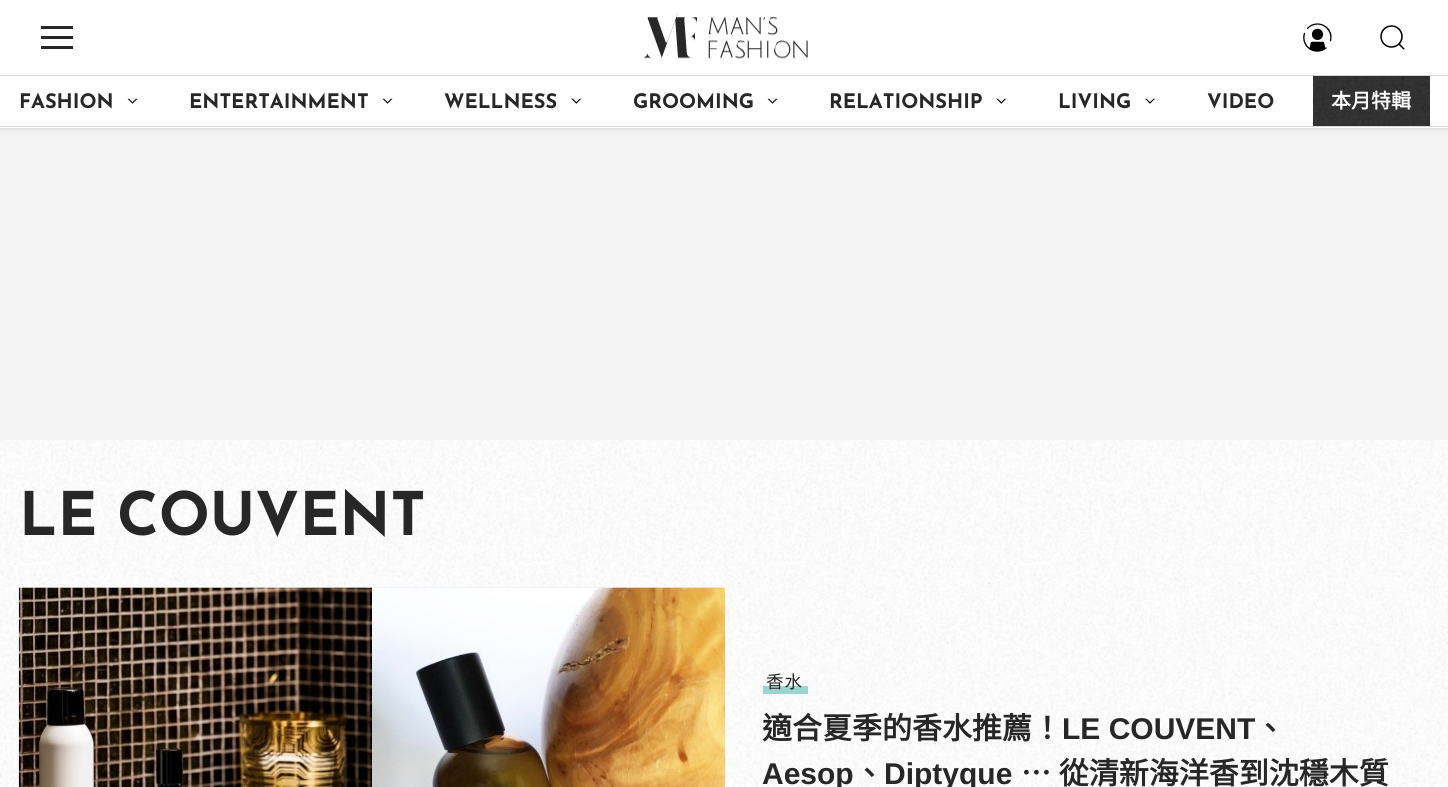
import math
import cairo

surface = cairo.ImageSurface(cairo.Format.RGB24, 1448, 787)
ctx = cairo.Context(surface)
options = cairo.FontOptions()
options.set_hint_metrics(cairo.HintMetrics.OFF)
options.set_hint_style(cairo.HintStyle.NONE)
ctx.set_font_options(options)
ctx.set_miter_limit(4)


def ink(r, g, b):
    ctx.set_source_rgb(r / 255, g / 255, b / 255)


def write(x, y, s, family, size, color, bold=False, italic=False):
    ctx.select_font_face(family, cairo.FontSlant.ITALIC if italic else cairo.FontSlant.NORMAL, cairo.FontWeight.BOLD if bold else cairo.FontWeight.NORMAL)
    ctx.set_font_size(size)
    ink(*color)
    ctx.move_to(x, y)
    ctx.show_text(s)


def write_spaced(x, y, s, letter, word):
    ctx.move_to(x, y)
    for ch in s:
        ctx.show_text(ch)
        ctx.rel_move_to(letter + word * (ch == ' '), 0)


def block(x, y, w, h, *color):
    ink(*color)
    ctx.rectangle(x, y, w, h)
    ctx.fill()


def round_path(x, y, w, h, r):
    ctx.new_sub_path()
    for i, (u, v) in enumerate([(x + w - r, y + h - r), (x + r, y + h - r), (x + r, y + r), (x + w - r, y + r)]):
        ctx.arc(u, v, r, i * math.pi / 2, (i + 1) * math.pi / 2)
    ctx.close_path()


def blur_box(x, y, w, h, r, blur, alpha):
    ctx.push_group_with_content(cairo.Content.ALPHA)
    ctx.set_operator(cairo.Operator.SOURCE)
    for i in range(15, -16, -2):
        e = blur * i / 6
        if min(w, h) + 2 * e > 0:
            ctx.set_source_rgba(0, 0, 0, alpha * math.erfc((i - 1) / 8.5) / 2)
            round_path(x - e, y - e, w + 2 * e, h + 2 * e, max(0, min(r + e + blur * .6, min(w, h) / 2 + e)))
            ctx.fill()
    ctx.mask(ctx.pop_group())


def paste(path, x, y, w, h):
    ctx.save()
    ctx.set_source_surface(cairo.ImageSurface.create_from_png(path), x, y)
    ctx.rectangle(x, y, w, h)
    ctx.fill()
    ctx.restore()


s1 = dict(family="Josefin Sans", size=20, color=(39, 39, 39), bold=True)
s2 = dict(family="Noto Sans CJK TC", size=20, color=(255, 255, 255), bold=True)
s3 = dict(family="Josefin Sans", size=60, color=(39, 39, 39), bold=True)
s4 = dict(family="Noto Sans CJK TC", size=30, color=(39, 39, 39), bold=True)
s5 = dict(family="Liberation Sans", size=30, color=(39, 39, 39), bold=True)

ink(255, 255, 255)
ctx.paint()
paste("pic1.png", 0, 440, 1448, 347)
block(0, 128, 1448, 312, 243, 243, 243)
ink(0, 0, 0)
blur_box(0, 0, 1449, 128, 0, 3, 0.15)
block(0, 0, 1448, 128, 255, 255, 255)
block(41, 26, 32, 3, 39, 39, 39)
block(41, 36, 32, 3, 39, 39, 39)
block(41, 46, 32, 3, 39, 39, 39)
paste("pic2.png", 643, 13, 165, 49)
paste("pic3.png", 1303, 23, 29, 29)
paste("pic4.png", 1380, 25, 25, 25)
block(0, 75, 1448, 1, 216, 216, 216)
block(0, 126, 1448, 1, 216, 216, 216)
write(19, 108, "FASHION", **s1)
paste("pic5.png", 127, 98, 11, 6)
write(189, 108, "ENTERTAINMENT", **s1)
paste("pic5.png", 382, 98, 11, 6)
write(444, 108, "WELLNESS", **s1)
paste("pic6.png", 571, 98, 11, 6)
write(633, 108, "GROOMING", **s1)
paste("pic5.png", 767, 98, 11, 6)
write(829, 108, "RELATIONSHIP", **s1)
paste("pic6.png", 996, 98, 11, 6)
write(1058, 108, "LIVING", **s1)
paste("pic7.png", 1145, 98, 10, 6)
write(1207, 108, "VIDEO", **s1)
block(1313, 76, 117, 50, 39, 39, 39)
paste("pic8.png", 1312, 76, 118, 50)
write(1331, 108, "本月特輯", **s2)
write(19, 535, "LE COUVENT", **s3)
paste("pic10.png", 19, 587, 706, 1)
paste("pic9.png", 18, 587, 707, 200)
ctx.set_source_rgba(0.443, 0.776, 0.737, 0.7)
ctx.rectangle(763, 686, 45, 8)
ctx.fill()
ctx.select_font_face("Noto Sans CJK TC")
ctx.set_font_size(17.5)
ink(39, 39, 39)
write_spaced(766, 688, "香水", 1, 0)
write(762, 739, "適合夏季的香水推薦！", **s4)
write(1062, 739, "LE COUVENT", **s5)
write(1255, 739, "、", **s4)
write(762, 784, "Aesop", **s5)
write(854, 784, "、", **s4)
write(884, 784, "Diptyque", **s5)
ctx.select_font_face("Noto Sans CJK TC", cairo.FontSlant.NORMAL, cairo.FontWeight.BOLD)
write_spaced(1021, 784, "⋯ 從清新海洋香到沈穩木質", 0, 1)
surface.write_to_png("screenshot.png")
